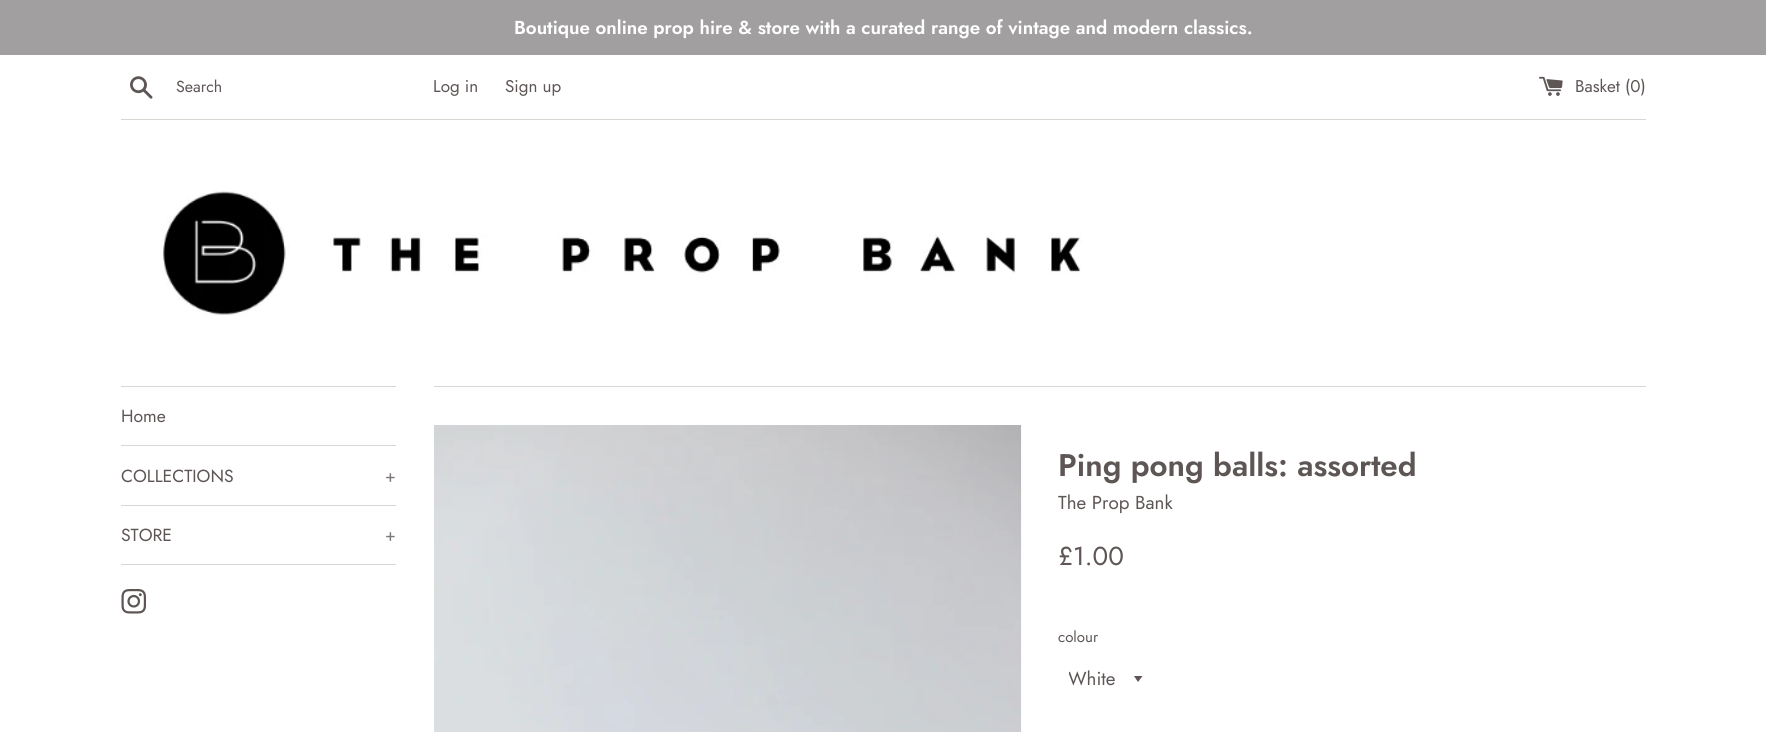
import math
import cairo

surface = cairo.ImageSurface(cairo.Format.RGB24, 1766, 732)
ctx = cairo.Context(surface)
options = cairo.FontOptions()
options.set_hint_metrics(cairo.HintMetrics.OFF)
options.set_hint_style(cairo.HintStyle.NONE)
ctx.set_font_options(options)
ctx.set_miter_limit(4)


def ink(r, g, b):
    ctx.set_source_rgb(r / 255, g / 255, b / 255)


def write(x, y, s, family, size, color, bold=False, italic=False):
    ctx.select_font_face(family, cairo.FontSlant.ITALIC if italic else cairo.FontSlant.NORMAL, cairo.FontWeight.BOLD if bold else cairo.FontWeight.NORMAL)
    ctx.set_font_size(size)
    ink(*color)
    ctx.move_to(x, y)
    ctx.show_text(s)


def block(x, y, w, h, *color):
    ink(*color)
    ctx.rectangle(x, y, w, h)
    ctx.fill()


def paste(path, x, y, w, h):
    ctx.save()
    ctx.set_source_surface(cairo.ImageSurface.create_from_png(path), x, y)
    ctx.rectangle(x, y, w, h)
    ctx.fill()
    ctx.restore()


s1 = dict(family="Jost SemiBold", size=18.75, color=(255, 255, 255))
s2 = dict(family="Jost", size=16, color=(93, 86, 85))
s3 = dict(family="Jost", size=17, color=(93, 86, 85))
s4 = dict(family="Jost", size=17.5, color=(93, 86, 85))
s5 = dict(family="Jost", size=17.5, color=(125, 120, 119))
s6 = dict(family="Jost SemiBold", size=31.25, color=(93, 86, 85))
s7 = dict(family="Jost", size=18.75, color=(93, 86, 85))
s8 = dict(family="Jost", size=26, color=(93, 86, 85))
s9 = dict(family="Jost", size=15, color=(93, 86, 85))

ink(255, 255, 255)
ctx.paint()
block(0, 0, 1766, 55, 161, 159, 159)
write(514, 34, "Boutique online prop hire & store with a curated range of vintage and modern classics.", **s1)
paste("pic1.png", 130, 76, 23, 23)
write(176, 92, "Search", **s2)
write(433, 92, "Log in", **s3)
write(505, 92, "Sign up", **s3)
paste("pic2.png", 1539, 76, 24, 20)
write(1575, 92, "Basket (0)", **s3)
block(121, 119, 1525, 1, 215, 216, 210)
paste("pic3.png", 162, 190, 920, 125)
block(121, 386, 275, 1, 215, 216, 210)
block(121, 445, 275, 1, 215, 216, 210)
write(121, 422, "Home", **s4)
block(121, 505, 275, 1, 215, 216, 210)
write(121, 482, "COLLECTIONS", **s4)
write(385, 482, "+", **s5)
block(121, 564, 275, 1, 215, 216, 210)
write(121, 541, "STORE", **s4)
write(385, 541, "+", **s5)
paste("pic4.png", 121, 589, 25, 25)
block(434, 386, 1212, 1, 215, 216, 210)
paste("pic5.png", 434, 425, 588, 307)
write(1058, 476, "Ping pong balls: assorted", **s6)
write(1058, 509, "The Prop Bank", **s7)
write(1058, 565, "£1.00", **s8)
write(1058, 642, "colour", **s9)
ctx.new_path()
ctx.move_to(1134, 676)
ctx.line_to(1138, 682)
ctx.line_to(1142.5, 676)
ctx.close_path()
ctx.fill()
ctx.save()
ctx.rectangle(1069, 664, 52, 30)
ctx.clip()
write(1068, 685, "White", **s7)
ctx.restore()
surface.write_to_png("screenshot.png")
